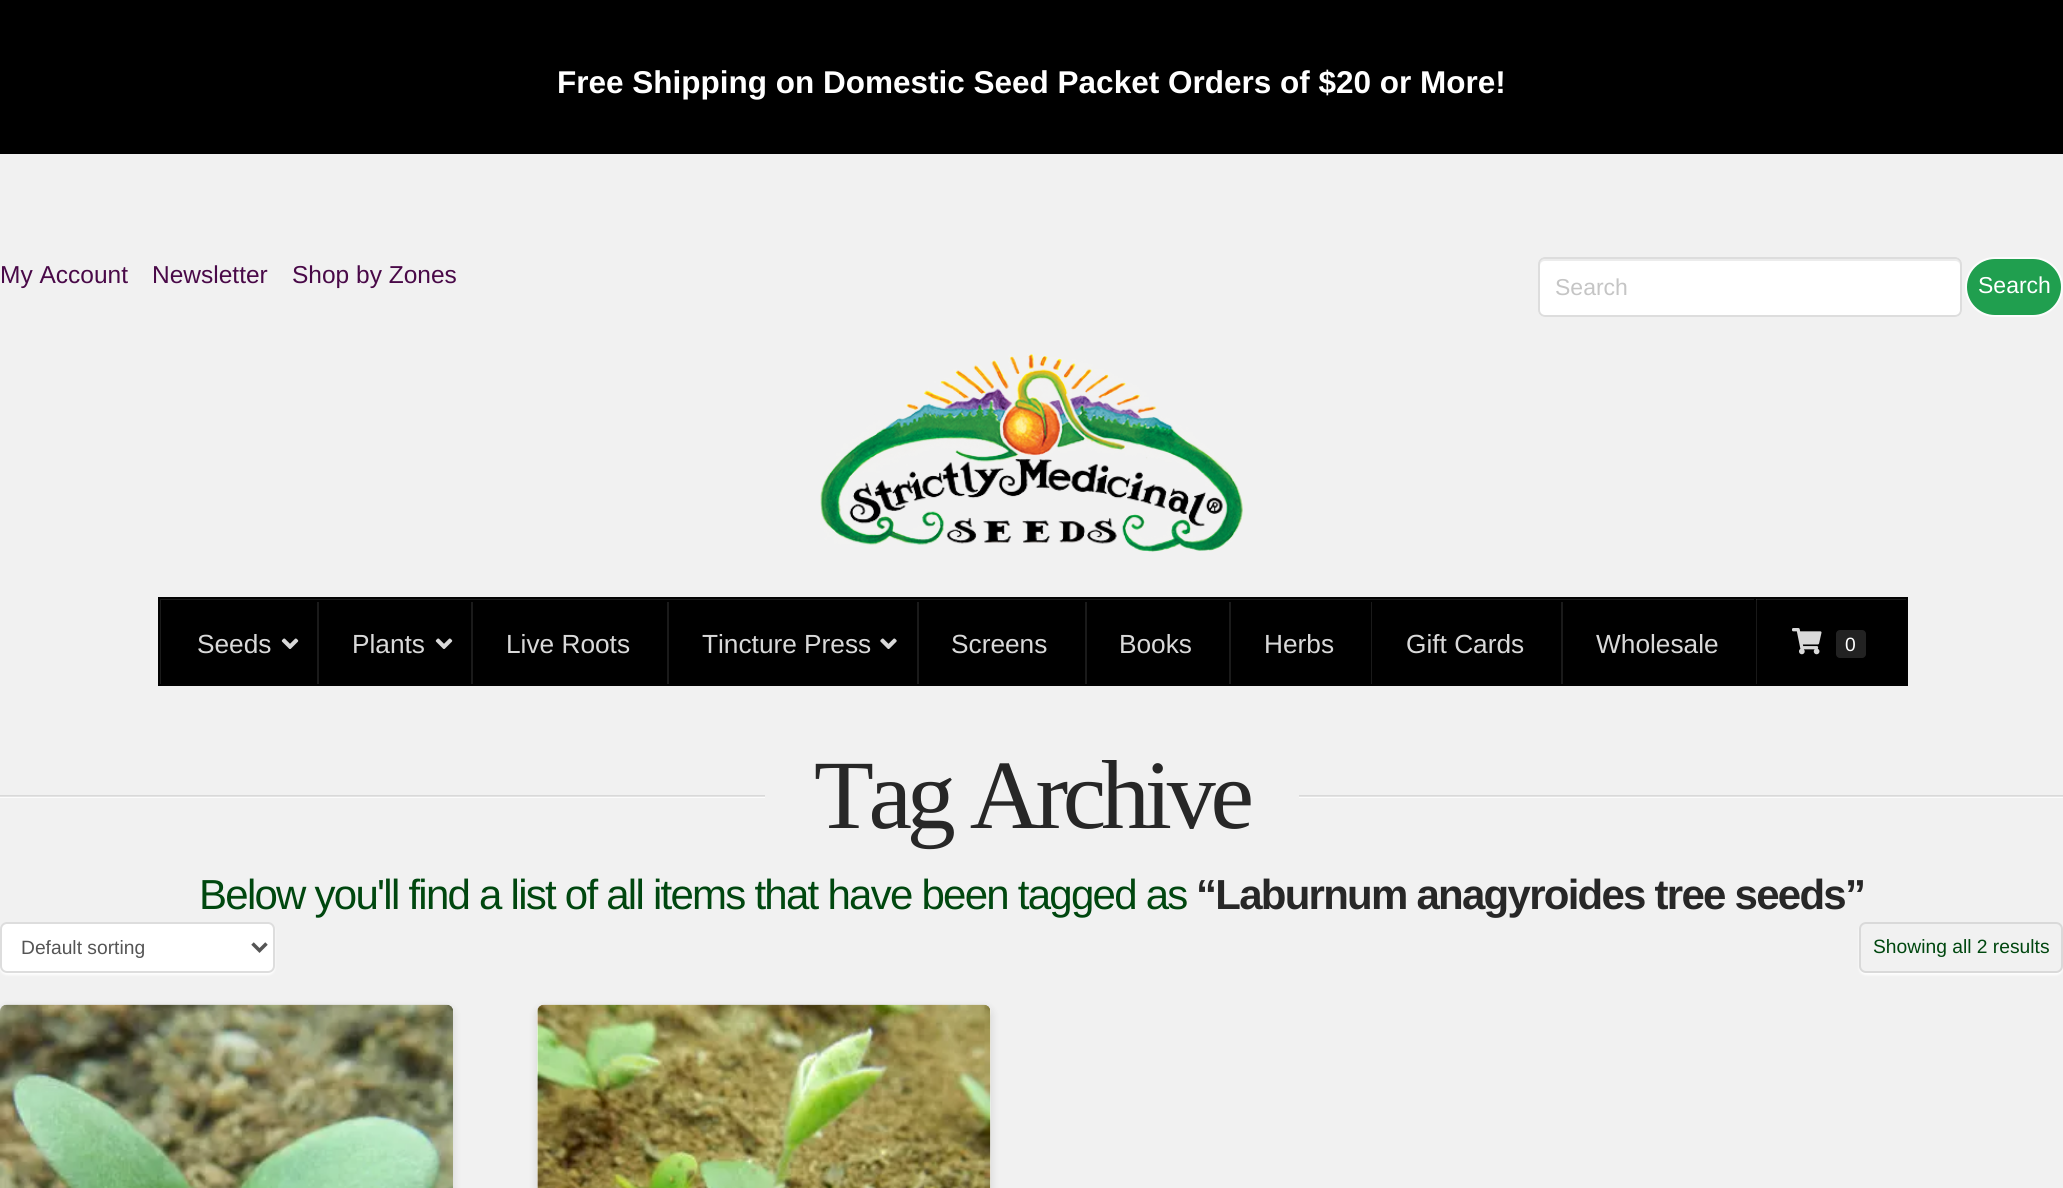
import math
import cairo

surface = cairo.ImageSurface(cairo.Format.RGB24, 2063, 1188)
ctx = cairo.Context(surface)
options = cairo.FontOptions()
options.set_hint_metrics(cairo.HintMetrics.OFF)
options.set_hint_style(cairo.HintStyle.NONE)
ctx.set_font_options(options)
ctx.set_miter_limit(4)


def ink(r, g, b):
    ctx.set_source_rgb(r / 255, g / 255, b / 255)


def write(x, y, s, family, size, color, bold=False, italic=False):
    ctx.select_font_face(family, cairo.FontSlant.ITALIC if italic else cairo.FontSlant.NORMAL, cairo.FontWeight.BOLD if bold else cairo.FontWeight.NORMAL)
    ctx.set_font_size(size)
    ink(*color)
    ctx.move_to(x, y)
    ctx.show_text(s)


def write_spaced(x, y, s, letter, word):
    ctx.move_to(x, y)
    for ch in s:
        ctx.show_text(ch)
        ctx.rel_move_to(letter + word * (ch == ' '), 0)


def block(x, y, w, h, *color):
    ink(*color)
    ctx.rectangle(x, y, w, h)
    ctx.fill()


def round_path(x, y, w, h, r):
    ctx.new_sub_path()
    for i, (u, v) in enumerate([(x + w - r, y + h - r), (x + r, y + h - r), (x + r, y + r), (x + w - r, y + r)]):
        ctx.arc(u, v, r, i * math.pi / 2, (i + 1) * math.pi / 2)
    ctx.close_path()


def blur_box(x, y, w, h, r, blur, alpha):
    ctx.push_group_with_content(cairo.Content.ALPHA)
    ctx.set_operator(cairo.Operator.SOURCE)
    for i in range(15, -16, -2):
        e = blur * i / 6
        if min(w, h) + 2 * e > 0:
            ctx.set_source_rgba(0, 0, 0, alpha * math.erfc((i - 1) / 8.5) / 2)
            round_path(x - e, y - e, w + 2 * e, h + 2 * e, max(0, min(r + e + blur * .6, min(w, h) / 2 + e)))
            ctx.fill()
    ctx.mask(ctx.pop_group())


def paste(path, x, y, w, h):
    ctx.save()
    ctx.set_source_surface(cairo.ImageSurface.create_from_png(path), x, y)
    ctx.rectangle(x, y, w, h)
    ctx.fill()
    ctx.restore()


s1 = dict(family="Liberation Sans", size=31.5, color=(255, 255, 255), bold=True)
s2 = dict(family="Liberation Sans", size=24.5, color=(73, 9, 72))
s3 = dict(family="Liberation Sans", size=23, color=(197, 197, 197))
s4 = dict(family="Liberation Sans", size=23, color=(255, 255, 255))
s5 = dict(family="Liberation Sans", size=26.25, color=(217, 217, 217))
s6 = dict(family="Liberation Sans", size=19.25, color=(255, 255, 255))
s7 = dict(family="Liberation Sans", size=19.25, color=(85, 85, 85))
s8 = dict(family="Liberation Sans", size=19.25, color=(0, 71, 15))

ink(241, 241, 241)
ctx.paint()
block(1299, 795, 764, 1, 217, 217, 217)
block(0, 795, 765, 1, 217, 217, 217)
block(0, 0, 2063, 154, 0, 0, 0)
write(557, 93, "Free Shipping on Domestic Seed Packet Orders of $20 or More!", **s1)
write(0, 283, "My Account", **s2)
write(152, 283, "Newsletter", **s2)
write(292, 283, "Shop by Zones", **s2)
ink(255, 255, 255)
round_path(1538, 257, 424, 60, 7)
ctx.fill()
ink(236, 236, 236)
ctx.new_path()
ctx.move_to(1545, 261)
ctx.line_to(1955, 261)
ctx.curve_to(1958, 261, 1960, 263, 1960, 266)
ctx.line_to(1960, 264)
ctx.curve_to(1960, 261, 1958, 259, 1955, 259)
ctx.line_to(1545, 259)
ctx.curve_to(1542, 259, 1540, 261, 1540, 264)
ctx.line_to(1540, 266)
ctx.curve_to(1540, 263, 1542, 261, 1545, 261)
ctx.close_path()
ctx.fill()
round_path(1539, 258, 422, 58, 6)
ink(221, 221, 221)
ctx.stroke()
write(1555, 295, "Search", **s3)
ink(32, 159, 79)
round_path(1966, 258, 96, 58, 29)
ctx.fill_preserve()
ink(252, 252, 252)
ctx.stroke()
write(1978, 293, "Search", **s4)
paste("pic1.png", 820, 353, 423, 199)
block(161, 600, 1745, 84, 0, 0, 0)
ctx.save()
ctx.rectangle(159, 599, 1747, 85)
ctx.clip()
ink(26, 26, 26)
ctx.set_fill_rule(cairo.FillRule.EVEN_ODD)
ctx.new_path()
ctx.move_to(-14, 425)
ctx.line_to(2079, 425)
ctx.line_to(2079, 858)
ctx.line_to(-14, 858)
ctx.close_path()
ctx.move_to(161, 600)
ctx.line_to(1908, 600)
ctx.line_to(1908, 686)
ctx.line_to(161, 686)
ctx.close_path()
ctx.fill()
ctx.restore()
ctx.rectangle(159, 598, 1748, 87)
ink(2, 2, 2)
ctx.stroke()
write(197, 653, "Seeds", **s5)
paste("pic2.png", 281, 638, 18, 11)
block(317, 602, 2, 82, 26, 26, 26)
write(352, 653, "Plants", **s5)
paste("pic2.png", 435, 638, 18, 11)
block(471, 602, 2, 82, 26, 26, 26)
write(506, 653, "Live Roots", **s5)
block(667, 602, 2, 82, 26, 26, 26)
write(702, 653, "Tincture Press", **s5)
paste("pic3.png", 880, 638, 17, 11)
block(917, 602, 2, 82, 26, 26, 26)
write(951, 653, "Screens", **s5)
block(1085, 602, 2, 82, 26, 26, 26)
write(1119, 653, "Books", **s5)
block(1229, 602, 2, 82, 26, 26, 26)
write(1264, 653, "Herbs", **s5)
block(1371, 602, 1, 82, 26, 26, 26)
write(1406, 653, "Gift Cards", **s5)
block(1561, 602, 2, 82, 26, 26, 26)
write(1596, 653, "Wholesale", **s5)
ctx.set_source_rgba(1, 1, 1, 0.1)
ctx.rectangle(1756, 599, 1, 85)
ctx.fill()
block(1754, 599, 2, 1, 0, 0, 0)
paste("pic4.png", 1792, 628, 30, 27)
ink(34, 34, 34)
round_path(1836, 630, 30, 28, 4)
ctx.fill()
write(1845, 651, "0", **s6)
block(0, 797, 765, 1, 252, 252, 252)
block(0, 796, 765, 1, 227, 227, 227)
ctx.select_font_face("Liberation Serif")
ctx.set_font_size(98)
ink(39, 39, 39)
write_spaced(814, 828, "Tag Archive", -5.25, 0)
block(1299, 797, 764, 1, 252, 252, 252)
block(1299, 796, 764, 1, 227, 227, 227)
ctx.select_font_face("Liberation Sans")
ctx.set_font_size(42)
ink(0, 71, 15)
write_spaced(199, 909, "Below you'll find a list of all items that have been tagged as", -1.75, 0)
ctx.select_font_face("Liberation Sans", cairo.FontSlant.NORMAL, cairo.FontWeight.BOLD)
ink(39, 39, 39)
write_spaced(1196, 909, "“Laburnum anagyroides tree seeds”", -1.75, 0)
ink(255, 255, 255)
blur_box(0, 924, 275, 51, 7, 1, 0.95)
ink(255, 255, 255)
round_path(1, 923, 273, 49, 6)
ctx.fill_preserve()
ink(221, 221, 221)
ctx.stroke()
ctx.new_path()
ctx.move_to(252.5, 943.5)
ctx.line_to(259.5, 950.5)
ctx.line_to(266.5, 943.5)
ink(85, 85, 85)
ctx.set_line_width(3.5)
ctx.stroke()
write(21, 954, "Default sorting", **s7)
ctx.save()
ctx.set_fill_rule(cairo.FillRule.EVEN_ODD)
ctx.new_path()
ctx.move_to(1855, 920)
ctx.line_to(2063, 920)
ctx.line_to(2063, 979)
ctx.line_to(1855, 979)
ctx.close_path()
ctx.move_to(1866, 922)
ctx.line_to(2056, 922)
ctx.curve_to(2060, 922, 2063, 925, 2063, 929)
ctx.line_to(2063, 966)
ctx.curve_to(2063, 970, 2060, 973, 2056, 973)
ctx.line_to(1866, 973)
ctx.curve_to(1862, 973, 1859, 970, 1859, 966)
ctx.line_to(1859, 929)
ctx.curve_to(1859, 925, 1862, 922, 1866, 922)
ctx.close_path()
ctx.clip()
ink(255, 255, 255)
blur_box(1859, 924, 204, 51, 7, 1, 0.95)
ctx.restore()
round_path(1860, 923, 202, 49, 6)
ctx.set_source_rgba(0, 0, 0, 0.1)
ctx.set_line_width(2)
ctx.stroke()
write(1873, 953, "Showing all 2 results", **s8)
ink(0, 0, 0)
blur_box(0, 1008, 453, 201, 7, 4.5, 0.13)
paste("pic5.png", 0, 1004, 453, 184)
blur_box(537, 1008, 454, 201, 7, 4.5, 0.13)
ink(255, 255, 255)
round_path(537, 1005, 454, 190, 7)
ctx.fill()
ctx.save()
round_path(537, 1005, 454, 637, 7)
ctx.clip()
ink(0, 0, 0)
blur_box(551, 1015, 440, 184, 0, 3.5, 0.13)
ctx.restore()
paste("pic6.png", 537, 1004, 454, 184)
surface.write_to_png("screenshot.png")
